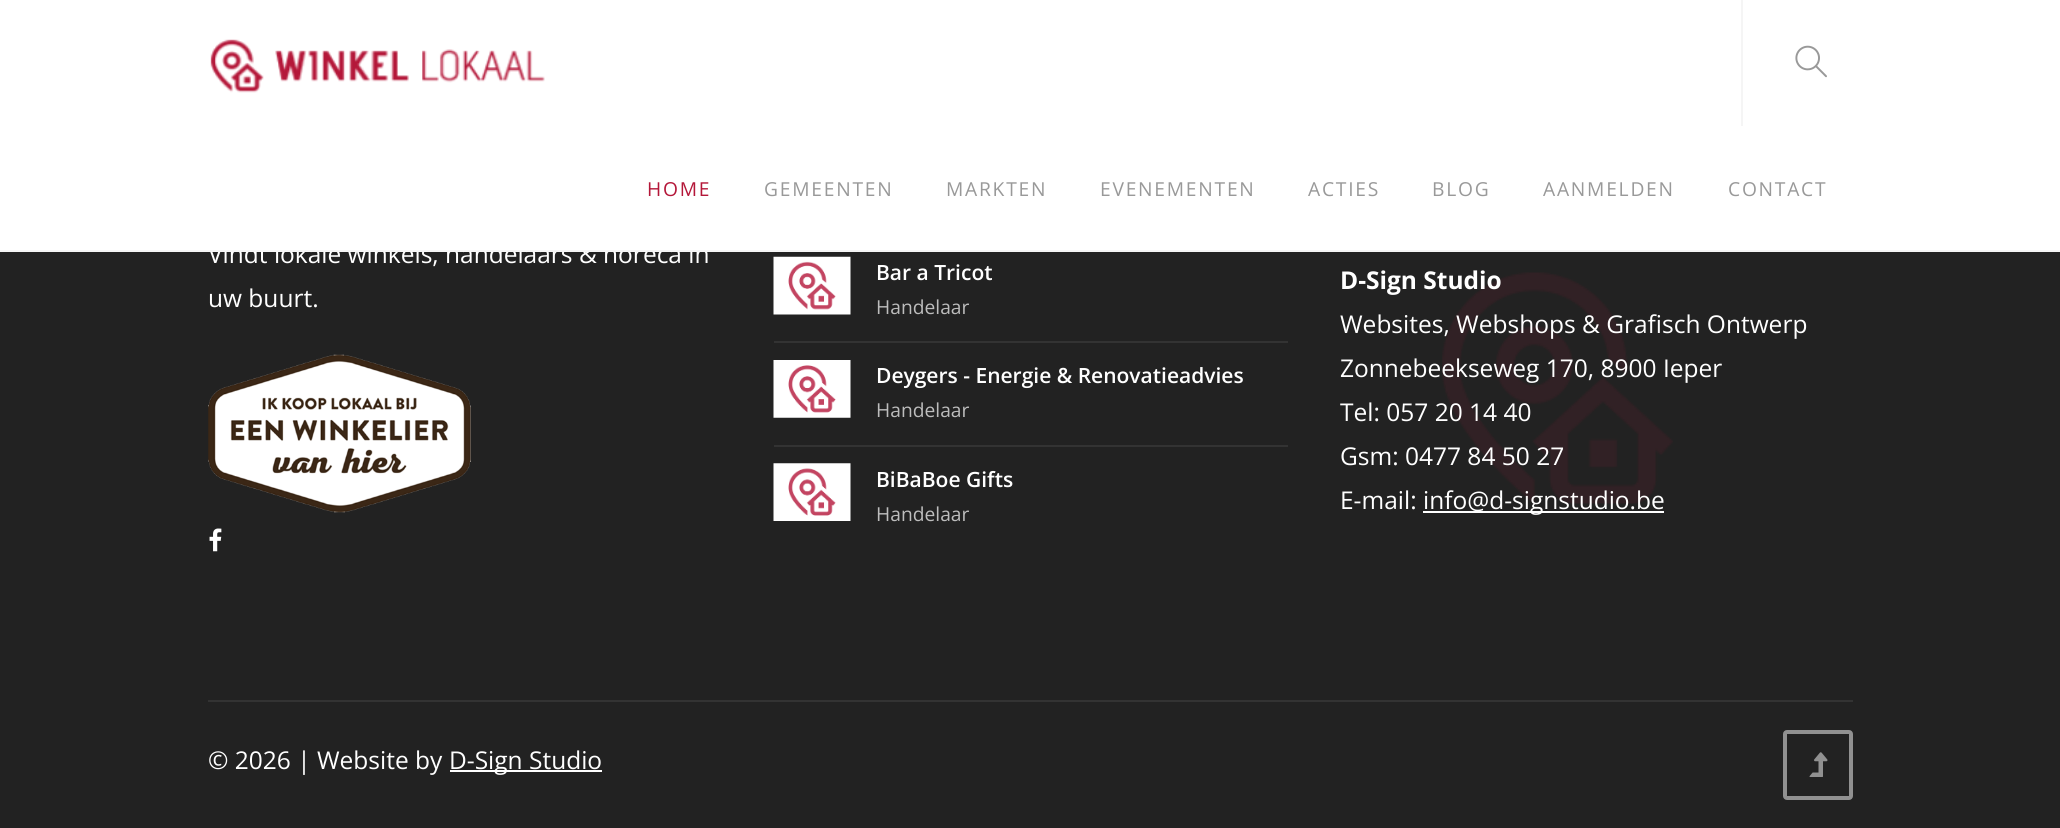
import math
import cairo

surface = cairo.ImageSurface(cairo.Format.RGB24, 2060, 828)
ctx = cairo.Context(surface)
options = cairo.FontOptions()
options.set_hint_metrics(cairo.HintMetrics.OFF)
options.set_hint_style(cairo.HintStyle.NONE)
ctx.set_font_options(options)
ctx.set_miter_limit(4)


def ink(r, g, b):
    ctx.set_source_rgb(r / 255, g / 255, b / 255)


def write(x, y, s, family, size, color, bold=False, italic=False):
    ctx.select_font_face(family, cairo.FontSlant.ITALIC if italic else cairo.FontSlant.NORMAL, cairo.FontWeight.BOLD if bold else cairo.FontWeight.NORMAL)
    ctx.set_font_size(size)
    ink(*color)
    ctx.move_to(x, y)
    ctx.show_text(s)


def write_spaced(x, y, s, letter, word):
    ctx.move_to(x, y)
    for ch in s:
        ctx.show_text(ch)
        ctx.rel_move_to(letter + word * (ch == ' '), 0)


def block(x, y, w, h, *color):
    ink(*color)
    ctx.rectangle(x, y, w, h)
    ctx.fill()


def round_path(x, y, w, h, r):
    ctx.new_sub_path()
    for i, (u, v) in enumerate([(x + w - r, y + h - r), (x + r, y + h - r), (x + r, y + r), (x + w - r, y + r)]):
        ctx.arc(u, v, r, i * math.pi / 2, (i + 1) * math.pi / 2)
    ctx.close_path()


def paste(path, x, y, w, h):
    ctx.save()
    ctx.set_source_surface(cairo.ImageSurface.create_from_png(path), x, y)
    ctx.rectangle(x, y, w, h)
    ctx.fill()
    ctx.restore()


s1 = dict(family="Open Sans", size=24.5, color=(255, 255, 255))
s2 = dict(family="Open Sans SemiBold", size=21, color=(255, 255, 255))
s3 = dict(family="Open Sans", size=19.25, color=(189, 189, 189))
s4 = dict(family="Open Sans", size=24.5, color=(255, 255, 255), bold=True)

ink(34, 34, 34)
ctx.paint()
block(0, 0, 2060, 250, 255, 255, 255)
write(208, 263, "Vindt lokale winkels, handelaars & horeca in", **s1)
block(0, 250, 2060, 2, 245, 245, 245)
paste("pic1.png", 210, 39, 335, 54)
block(1741, 0, 2, 126, 245, 245, 245)
paste("pic2.png", 1795, 45, 32, 33)
ctx.set_font_size(19.25)
ink(180, 23, 57)
write_spaced(647, 196, "HOME", 1.75, 0)
ink(153, 153, 153)
write_spaced(764, 196, "GEMEENTEN", 1.75, 0)
write_spaced(946, 196, "MARKTEN", 1.75, 0)
write_spaced(1100, 196, "EVENEMENTEN", 1.75, 0)
write_spaced(1308, 196, "ACTIES", 1.75, 0)
write_spaced(1432, 196, "BLOG", 1.75, 0)
write_spaced(1543, 196, "AANMELDEN", 1.75, 0)
write_spaced(1728, 196, "CONTACT", 1.75, 0)
write(208, 307, "uw buurt.", **s1)
paste("pic3.png", 208, 354, 263, 159)
paste("pic4.png", 209, 528, 13, 24)
paste("pic5.png", 773, 256, 78, 59)
write(876, 280, "Bar a Tricot", **s2)
write(876, 314, "Handelaar", **s3)
block(774, 341, 514, 2, 51, 51, 51)
paste("pic6.png", 773, 360, 78, 58)
write(876, 383, "Deygers - Energie & Renovatieadvies", **s2)
write(876, 417, "Handelaar", **s3)
block(774, 445, 514, 2, 51, 51, 51)
paste("pic7.png", 773, 463, 78, 58)
write(876, 487, "BiBaBoe Gifts", **s2)
write(876, 521, "Handelaar", **s3)
paste("pic8.png", 1442, 272, 231, 232)
write(1340, 289, "D-Sign Studio", **s4)
write(1340, 333, "Websites, Webshops & Grafisch Ontwerp", **s1)
write(1340, 377, "Zonnebeekseweg 170, 8900 Ieper", **s1)
write(1340, 421, "Tel: 057 20 14 40", **s1)
write(1340, 465, "Gsm: 0477 84 50 27", **s1)
write(1340, 509, "E-mail:", **s1)
block(1423, 511, 241, 2, 255, 255, 255)
write(1423, 509, "info@d-signstudio.be", **s1)
block(208, 700, 1645, 2, 51, 51, 51)
write(208, 769, "© 2026 | Website by", **s1)
block(450, 770, 152, 2, 255, 255, 255)
write(449, 769, "D-Sign Studio", **s1)
round_path(1785, 732, 66, 66, 2)
ink(145, 145, 145)
ctx.set_line_width(4)
ctx.stroke()
paste("pic9.png", 1809, 752, 19, 25)
surface.write_to_png("screenshot.png")
